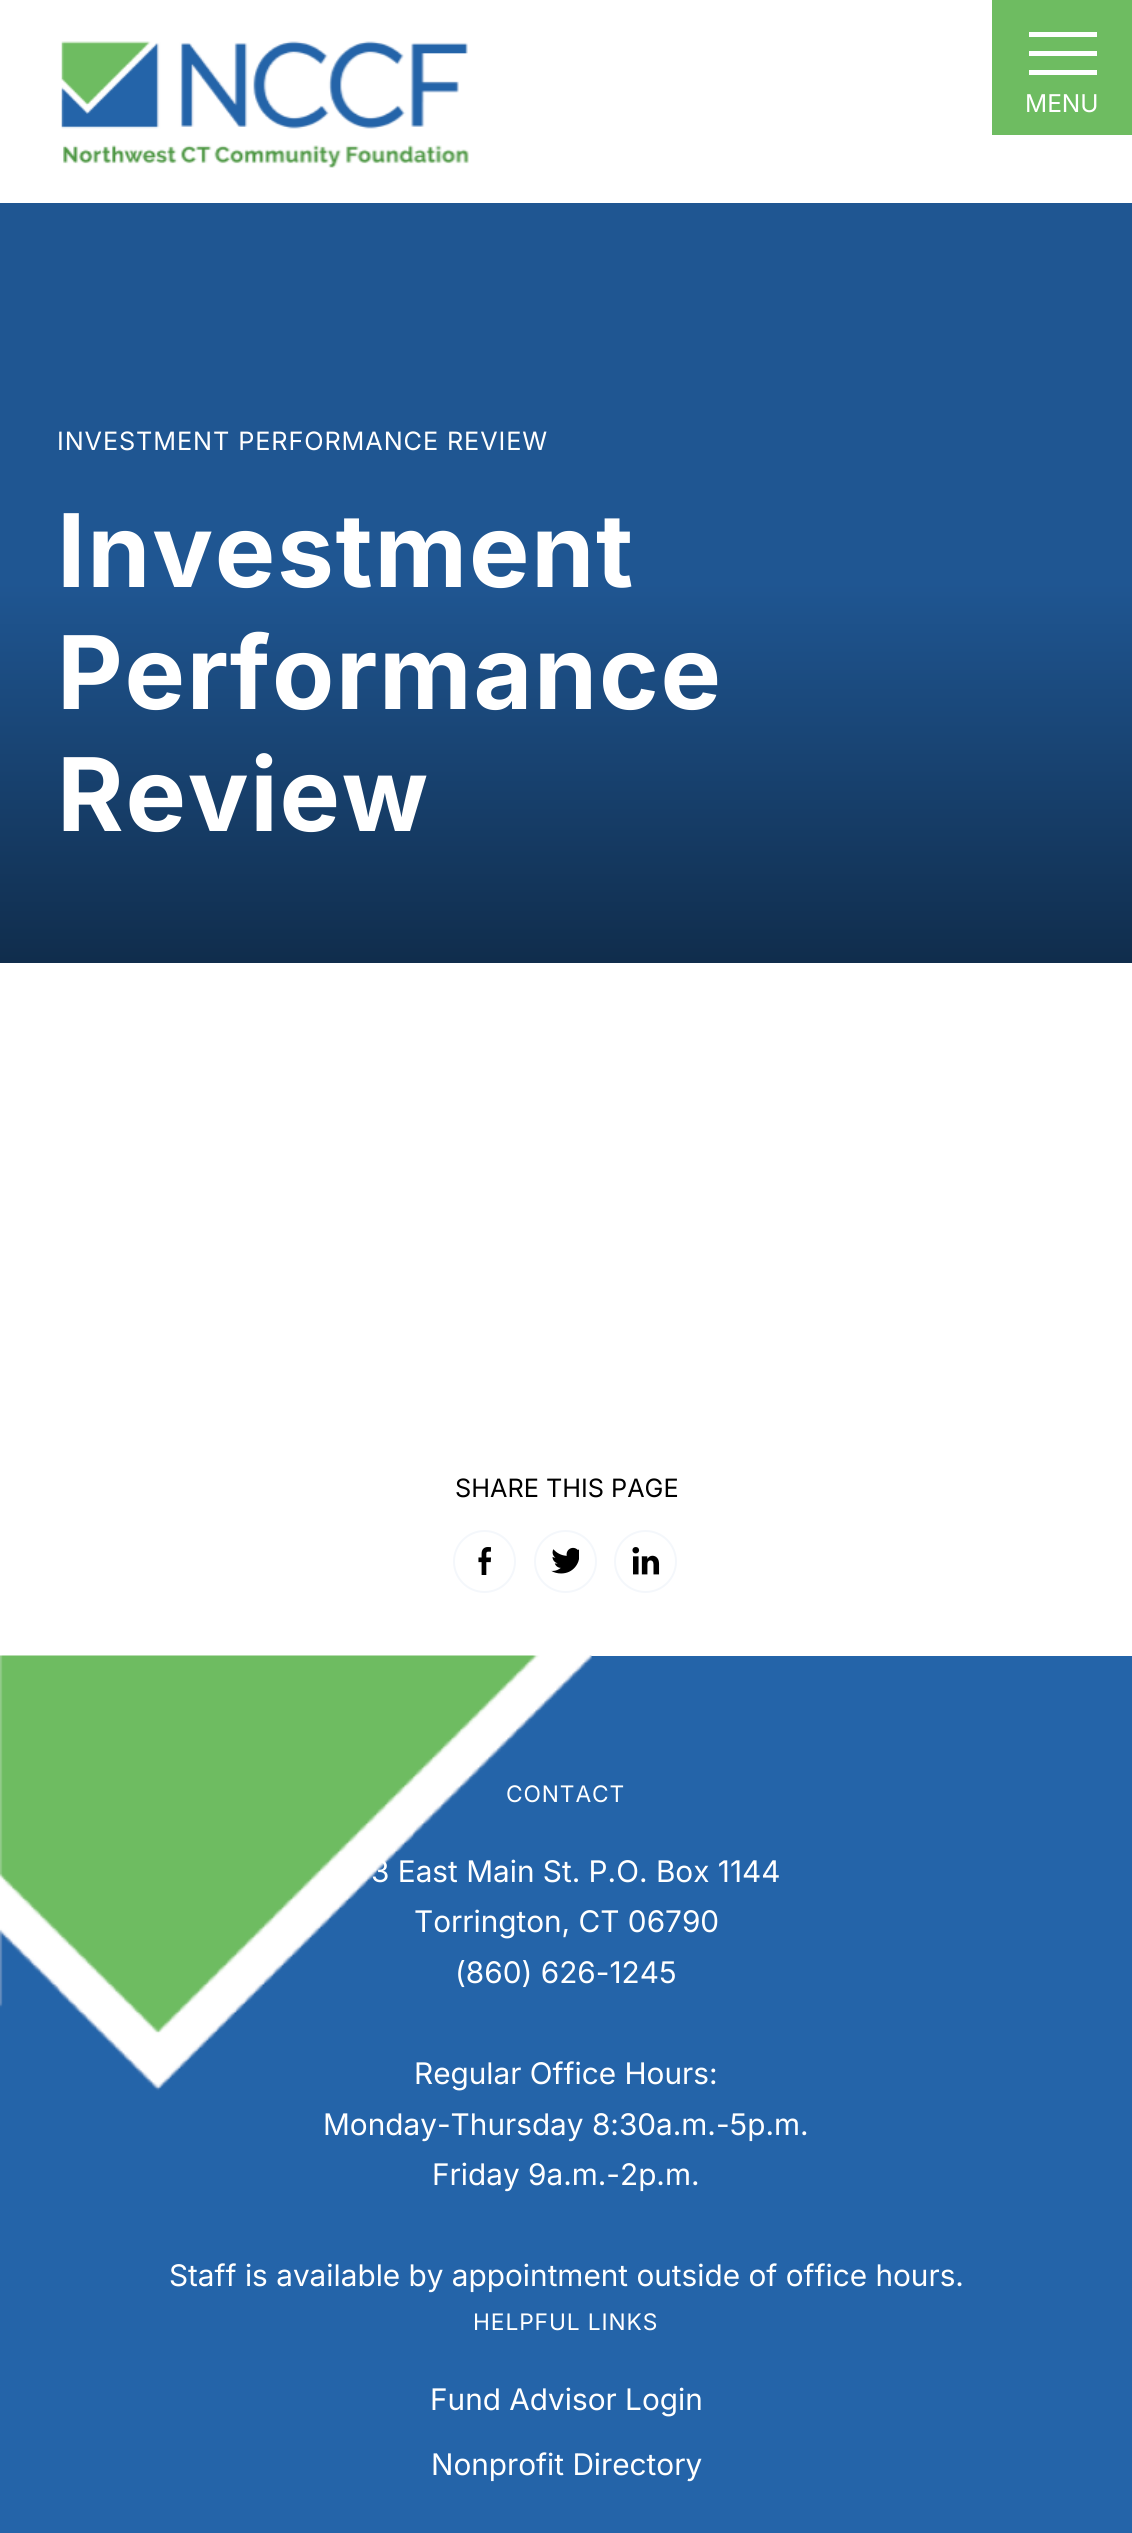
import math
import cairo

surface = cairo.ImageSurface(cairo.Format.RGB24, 1132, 2533)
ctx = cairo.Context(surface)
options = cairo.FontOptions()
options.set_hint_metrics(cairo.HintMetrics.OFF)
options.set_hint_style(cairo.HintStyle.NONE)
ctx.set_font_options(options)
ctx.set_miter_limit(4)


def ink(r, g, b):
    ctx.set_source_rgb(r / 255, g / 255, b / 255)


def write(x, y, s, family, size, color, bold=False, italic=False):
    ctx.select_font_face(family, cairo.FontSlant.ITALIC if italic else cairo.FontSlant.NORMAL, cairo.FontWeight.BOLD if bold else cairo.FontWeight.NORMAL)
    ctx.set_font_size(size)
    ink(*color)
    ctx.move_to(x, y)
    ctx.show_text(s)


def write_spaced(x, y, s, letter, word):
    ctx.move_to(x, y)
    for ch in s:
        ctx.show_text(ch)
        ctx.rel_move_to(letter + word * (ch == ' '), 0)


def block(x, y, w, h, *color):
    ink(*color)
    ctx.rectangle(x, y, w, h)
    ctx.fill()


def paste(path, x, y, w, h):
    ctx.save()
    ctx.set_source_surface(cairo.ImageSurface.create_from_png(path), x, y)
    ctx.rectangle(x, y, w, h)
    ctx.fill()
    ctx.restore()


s1 = dict(family="Inter", size=24.5, color=(255, 255, 255))
s2 = dict(family="Inter", size=25.25, color=(0, 0, 0))
s3 = dict(family="Inter", size=29.75, color=(255, 255, 255))

ink(255, 255, 255)
ctx.paint()
paste("pic1.png", 61, 41, 408, 127)
block(992, 0, 140, 135, 110, 188, 97)
block(1029, 32, 68, 5, 255, 255, 255)
block(1029, 51, 68, 5, 255, 255, 255)
block(1029, 70, 68, 5, 255, 255, 255)
write(1025, 112, "MENU", **s1)
gradient = cairo.LinearGradient(566, 203, 566, 963)
gradient.add_color_stop_rgba(0.5, 0.122, 0.337, 0.573, 1)
gradient.add_color_stop_rgba(1, 0.063, 0.176, 0.298, 1)
ctx.set_source(gradient)
ctx.rectangle(0, 203, 1132, 760)
ctx.fill()
ctx.set_font_size(25.25)
ink(255, 255, 255)
write_spaced(57, 450, "INVESTMENT PERFORMANCE REVIEW", 0.9, 0)
ctx.select_font_face("Inter", cairo.FontSlant.NORMAL, cairo.FontWeight.BOLD)
ctx.set_font_size(101.5)
write_spaced(57, 587, "Investment", 1.75, 0)
write_spaced(57, 709, "Performance", 1.75, 0)
write_spaced(57, 831, "Review", 1.75, 0)
write(455, 1497, "SHARE THIS PAGE", **s2)
ctx.new_path()
ctx.arc(484.5, 1561.5, 30.5, 0, 2 * math.pi)
ink(244, 247, 251)
ctx.stroke()
paste("pic2.png", 478, 1547, 14, 28)
ctx.arc(565.5, 1561.5, 30.5, 0, 2 * math.pi)
ctx.stroke()
paste("pic3.png", 551, 1547, 28, 27)
ctx.arc(645.5, 1561.5, 30.5, 0, 2 * math.pi)
ctx.stroke()
paste("pic4.png", 632, 1547, 28, 28)
block(0, 1656, 1132, 877, 36, 100, 169)
paste("pic5.png", 0, 1655, 592, 436)
ctx.set_font_size(22.75)
ink(255, 255, 255)
write_spaced(506, 1802, "CONTACT", 0.9, 0)
write(371, 1882, "3 East Main St. P.O. Box 1144", **s3)
write(414, 1932, "Torrington, CT 06790", **s3)
write(455, 1983, "(860) 626-1245", **s3)
write(414, 2084, "Regular Office Hours:", **s3)
write(323, 2135, "Monday-Thursday 8:30a.m.-5p.m.", **s3)
write(432, 2185, "Friday 9a.m.-2p.m.", **s3)
write(169, 2286, "Staff is available by appointment outside of office hours.", **s3)
ctx.set_font_size(22.75)
write_spaced(473, 2330, "HELPFUL LINKS", 0.9, 0)
write(430, 2410, "Fund Advisor Login", **s3)
write(431, 2475, "Nonprofit Directory", **s3)
surface.write_to_png("screenshot.png")
